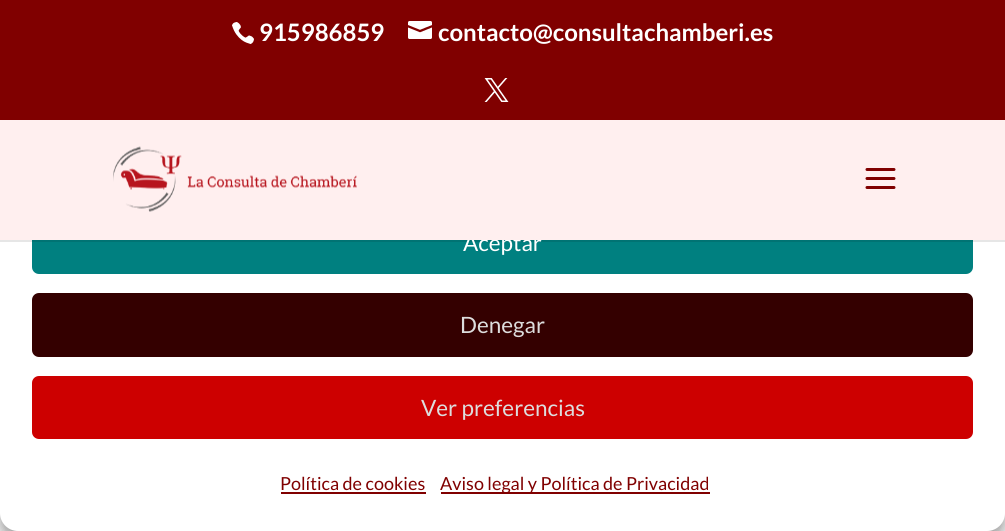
import math
import cairo

surface = cairo.ImageSurface(cairo.Format.RGB24, 1005, 531)
ctx = cairo.Context(surface)
options = cairo.FontOptions()
options.set_hint_metrics(cairo.HintMetrics.OFF)
options.set_hint_style(cairo.HintStyle.NONE)
ctx.set_font_options(options)
ctx.set_miter_limit(4)


def ink(r, g, b):
    ctx.set_source_rgb(r / 255, g / 255, b / 255)


def write(x, y, s, family, size, color, bold=False, italic=False):
    ctx.select_font_face(family, cairo.FontSlant.ITALIC if italic else cairo.FontSlant.NORMAL, cairo.FontWeight.BOLD if bold else cairo.FontWeight.NORMAL)
    ctx.set_font_size(size)
    ink(*color)
    ctx.move_to(x, y)
    ctx.show_text(s)


def block(x, y, w, h, *color):
    ink(*color)
    ctx.rectangle(x, y, w, h)
    ctx.fill()


def round_path(x, y, w, h, r):
    ctx.new_sub_path()
    for i, (u, v) in enumerate([(x + w - r, y + h - r), (x + r, y + h - r), (x + r, y + r), (x + w - r, y + r)]):
        ctx.arc(u, v, r, i * math.pi / 2, (i + 1) * math.pi / 2)
    ctx.close_path()


def blur_box(x, y, w, h, r, blur, alpha):
    ctx.push_group_with_content(cairo.Content.ALPHA)
    ctx.set_operator(cairo.Operator.SOURCE)
    for i in range(15, -16, -2):
        e = blur * i / 6
        if min(w, h) + 2 * e > 0:
            ctx.set_source_rgba(0, 0, 0, alpha * math.erfc((i - 1) / 8.5) / 2)
            round_path(x - e, y - e, w + 2 * e, h + 2 * e, max(0, min(r + e + blur * .6, min(w, h) / 2 + e)))
            ctx.fill()
    ctx.mask(ctx.pop_group())


def paste(path, x, y, w, h):
    ctx.save()
    ctx.set_source_surface(cairo.ImageSurface.create_from_png(path), x, y)
    ctx.rectangle(x, y, w, h)
    ctx.fill()
    ctx.restore()


s1 = dict(family="Lato", size=24, color=(255, 255, 255), bold=True)
s2 = dict(family="Lato", size=22.5, color=(255, 255, 255))
s3 = dict(family="Lato", size=22.5, color=(221, 221, 221))
s4 = dict(family="Lato", size=18, color=(128, 0, 0))

ink(255, 255, 255)
ctx.paint()
ink(0, 0, 0)
blur_box(0, 39, 1005, 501, 18, 4.5, 0.23)
blur_box(0, 45, 1005, 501, 18, 15, 0.19)
ink(255, 255, 255)
round_path(0, 30, 1005, 501, 18)
ctx.fill()
block(0, 0, 1005, 120, 128, 0, 0)
paste("pic1.png", 232, 22, 22, 22)
write(259, 41, "915986859", **s1)
paste("pic2.png", 408, 21, 24, 18)
write(438, 41, "contacto@consultachamberi.es", **s1)
paste("pic3.png", 484, 78, 25, 24)
ink(0, 128, 128)
round_path(31, 210, 943, 65, 8)
ctx.fill_preserve()
ink(255, 255, 255)
ctx.stroke()
ctx.set_source_rgba(0, 0, 0, 0.1)
ctx.rectangle(0, 240, 1005, 2)
ctx.fill()
write(463, 251, "Aceptar", **s2)
block(0, 120, 1005, 120, 255, 239, 239)
paste("pic4.png", 113, 146, 244, 66)
paste("pic5.png", 865, 168, 31, 21)
ink(52, 0, 0)
round_path(31, 292, 943, 66, 8)
ctx.fill_preserve()
ink(255, 255, 255)
ctx.stroke()
write(460, 333, "Denegar", **s3)
ink(205, 0, 0)
round_path(31, 375, 943, 65, 8)
ctx.fill_preserve()
ink(255, 255, 255)
ctx.stroke()
write(421, 416, "Ver preferencias", **s3)
write(280, 490, "Política de cookies", **s4)
block(281, 492, 145, 2, 128, 0, 0)
block(441, 492, 269, 2, 128, 0, 0)
write(440, 490, "Aviso legal y Política de Privacidad", **s4)
surface.write_to_png("screenshot.png")
